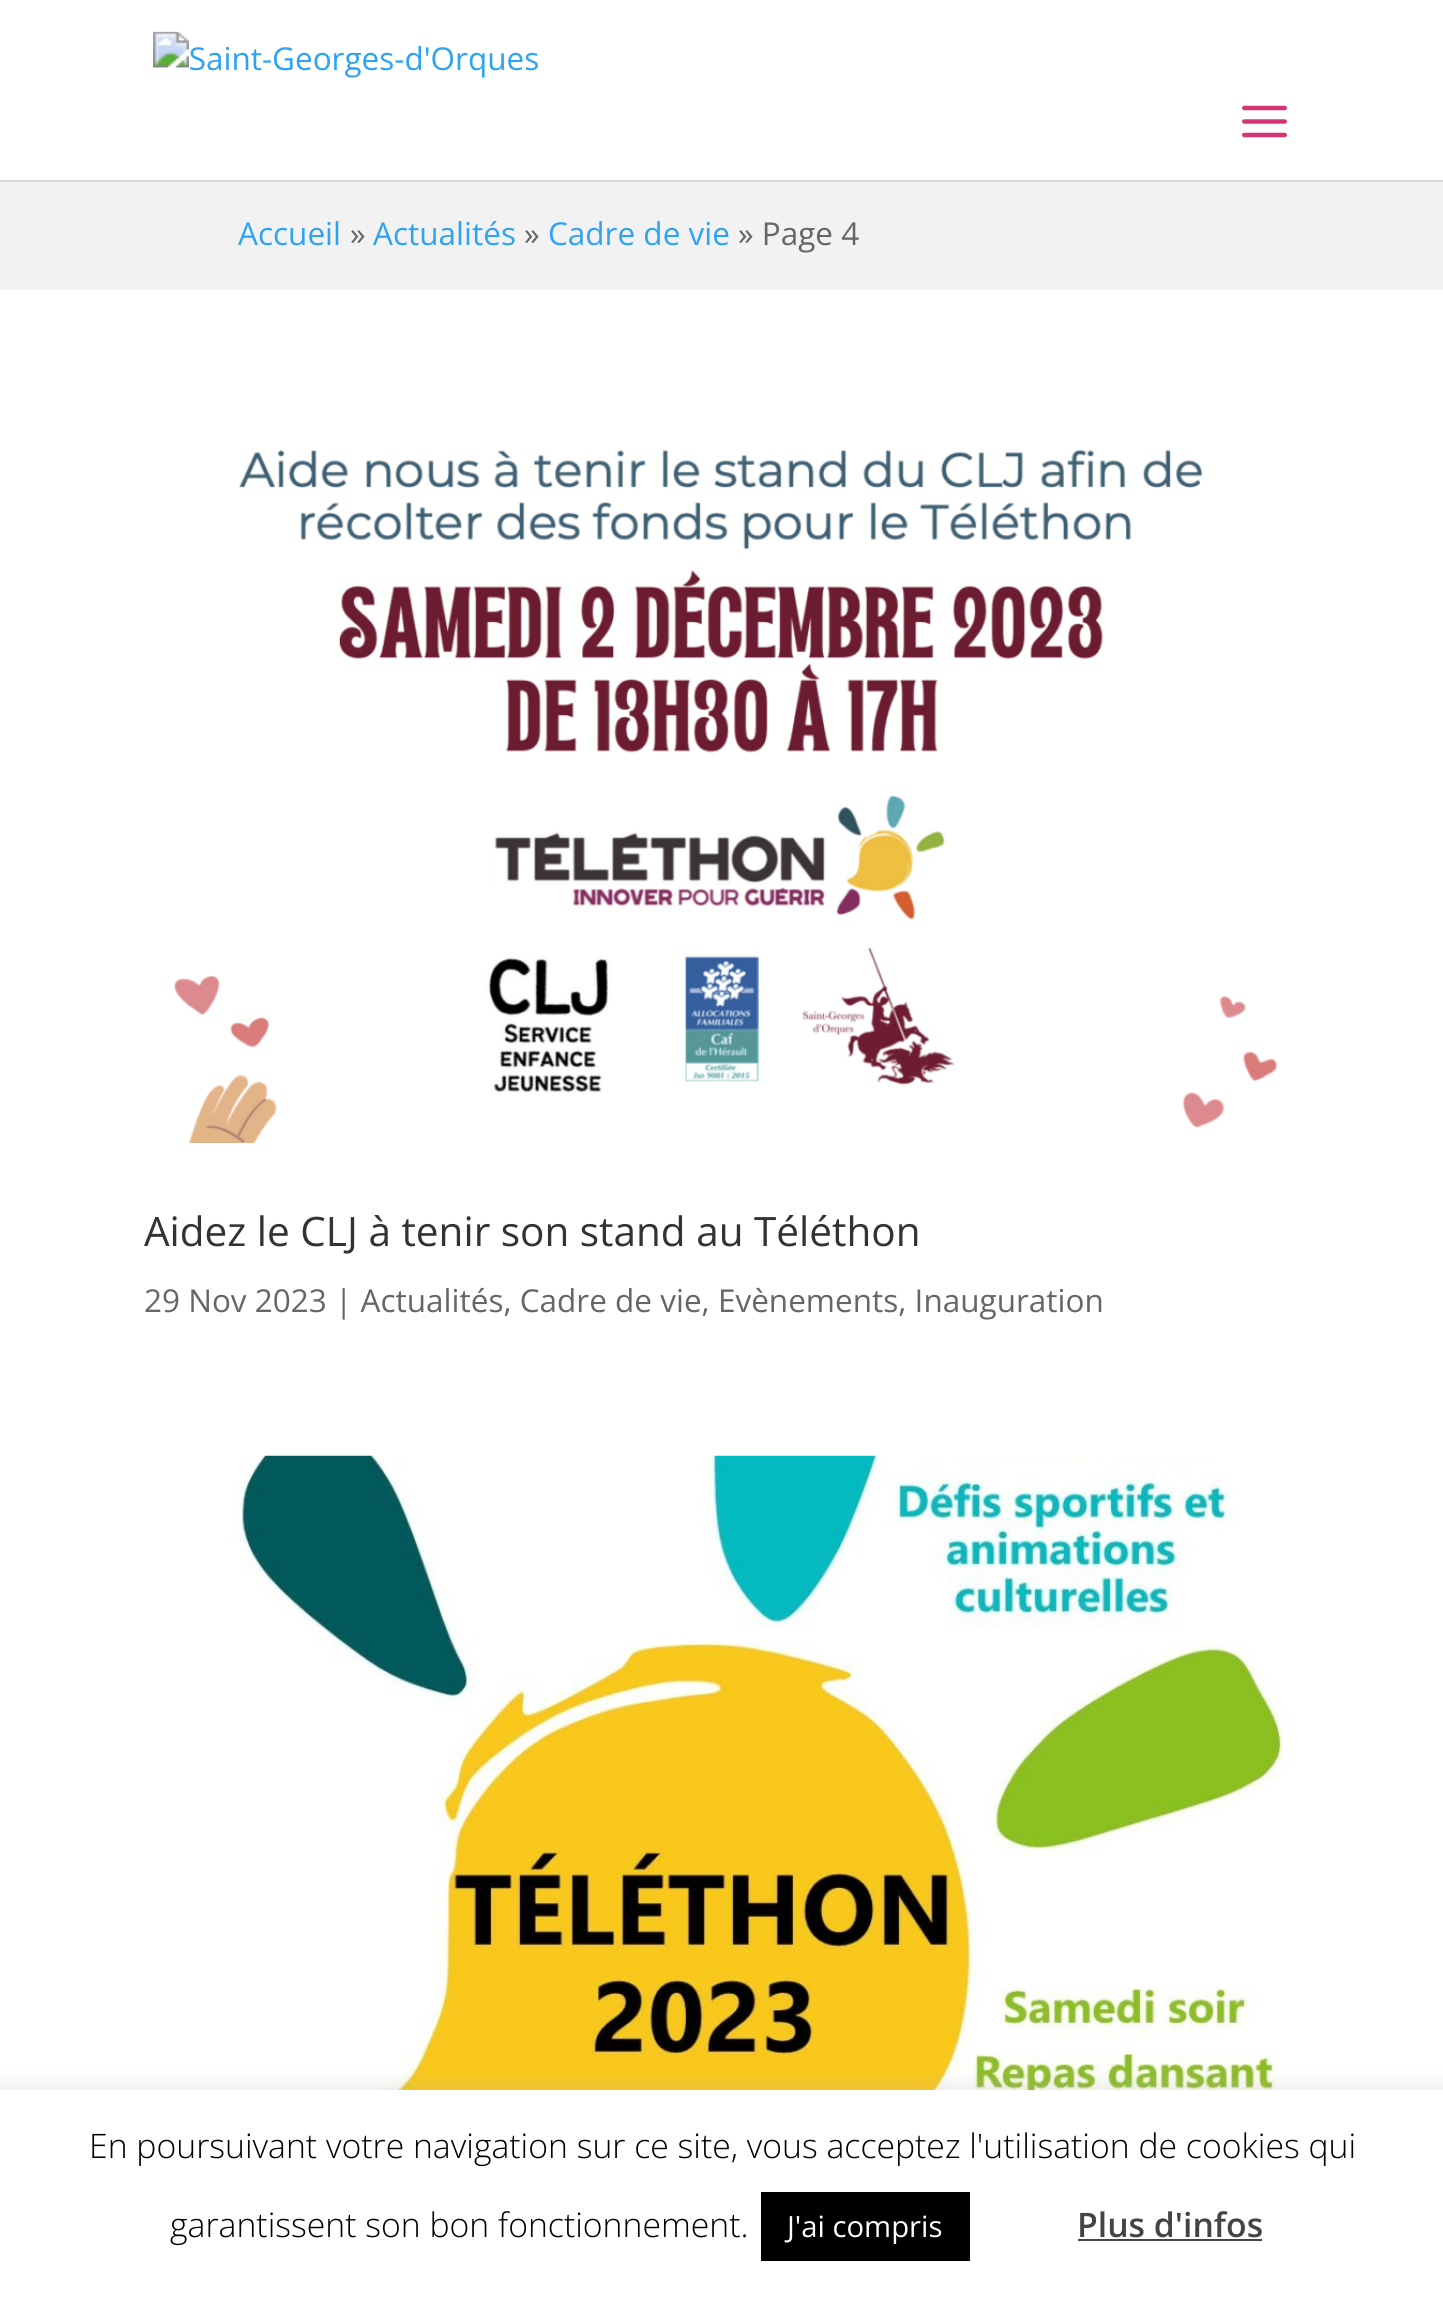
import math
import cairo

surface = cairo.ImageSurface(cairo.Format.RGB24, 1443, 2299)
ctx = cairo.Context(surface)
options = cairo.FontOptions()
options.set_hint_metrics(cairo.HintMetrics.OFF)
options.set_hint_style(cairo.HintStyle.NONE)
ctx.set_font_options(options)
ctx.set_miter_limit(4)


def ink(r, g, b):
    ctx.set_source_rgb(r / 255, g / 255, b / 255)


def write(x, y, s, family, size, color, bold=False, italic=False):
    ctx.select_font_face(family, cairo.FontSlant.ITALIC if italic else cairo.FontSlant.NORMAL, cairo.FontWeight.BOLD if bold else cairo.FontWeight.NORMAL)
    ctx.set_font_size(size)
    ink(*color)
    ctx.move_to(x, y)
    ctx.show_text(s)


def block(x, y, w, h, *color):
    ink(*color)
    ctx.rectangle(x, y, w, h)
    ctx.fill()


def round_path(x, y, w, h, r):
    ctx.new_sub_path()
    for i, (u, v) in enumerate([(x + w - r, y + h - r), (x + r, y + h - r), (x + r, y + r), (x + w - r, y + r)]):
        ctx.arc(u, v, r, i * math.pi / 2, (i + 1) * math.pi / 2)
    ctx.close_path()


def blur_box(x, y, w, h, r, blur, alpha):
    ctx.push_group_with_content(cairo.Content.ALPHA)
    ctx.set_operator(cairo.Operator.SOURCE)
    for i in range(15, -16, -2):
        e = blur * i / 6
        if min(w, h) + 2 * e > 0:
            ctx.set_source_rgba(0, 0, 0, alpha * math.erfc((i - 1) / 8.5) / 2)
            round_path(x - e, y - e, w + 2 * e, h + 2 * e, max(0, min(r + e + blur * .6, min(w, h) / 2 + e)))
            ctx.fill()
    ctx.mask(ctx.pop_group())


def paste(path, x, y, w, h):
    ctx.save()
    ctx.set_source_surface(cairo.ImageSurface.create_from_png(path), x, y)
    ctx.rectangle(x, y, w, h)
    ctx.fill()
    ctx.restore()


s1 = dict(family="Open Sans", size=31.5, color=(46, 163, 242))
s2 = dict(family="Open Sans", size=31.5, color=(102, 102, 102))
s3 = dict(family="Open Sans", size=40.5, color=(51, 51, 51))
s4 = dict(family="Open Sans Light", size=33.75, color=(0, 0, 0))
s5 = dict(family="Open Sans", size=29.25, color=(255, 255, 255))
s6 = dict(family="Open Sans SemiBold", size=33.75, color=(68, 68, 68))

ink(255, 255, 255)
ctx.paint()
ink(218, 218, 218)
ctx.new_path()
ctx.move_to(0, 180)
ctx.line_to(0, 182)
ctx.line_to(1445, 182)
ctx.line_to(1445, 2)
ctx.line_to(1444, 2)
ctx.line_to(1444, 180)
ctx.close_path()
ctx.fill()
paste("pic1.png", 153, 31, 385, 47)
paste("pic2.png", 1242, 105, 45, 33)
block(0, 182, 1443, 108, 242, 242, 242)
write(238, 245, "Accueil", **s1)
write(350, 245, "»", **s2)
write(373, 245, "Actualités", **s1)
write(524, 245, "»", **s2)
write(548, 245, "Cadre de vie", **s1)
write(738, 245, "» Page 4", **s2)
paste("pic3.png", 174, 449, 1104, 694)
write(144, 1246, "Aidez le CLJ à tenir son stand au Téléthon", **s3)
write(144, 1312, "29 Nov 2023 | Actualités, Cadre de vie, Evènements, Inauguration", **s2)
paste("pic4.png", 234, 1455, 1062, 635)
ink(172, 171, 171)
blur_box(0, 2088, 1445, 209, 0, 11, 0.3)
block(0, 2090, 1443, 209, 255, 255, 255)
write(89, 2158, "En poursuivant votre navigation sur ce site, vous acceptez l'utilisation de cookies qui", **s4)
write(170, 2237, "garantissent son bon fonctionnement.", **s4)
block(761, 2192, 209, 69, 0, 0, 0)
write(787, 2237, "J'ai compris", **s5)
write(1077, 2237, "Plus d'infos", **s6)
block(1078, 2239, 184, 2, 68, 68, 68)
surface.write_to_png("screenshot.png")
